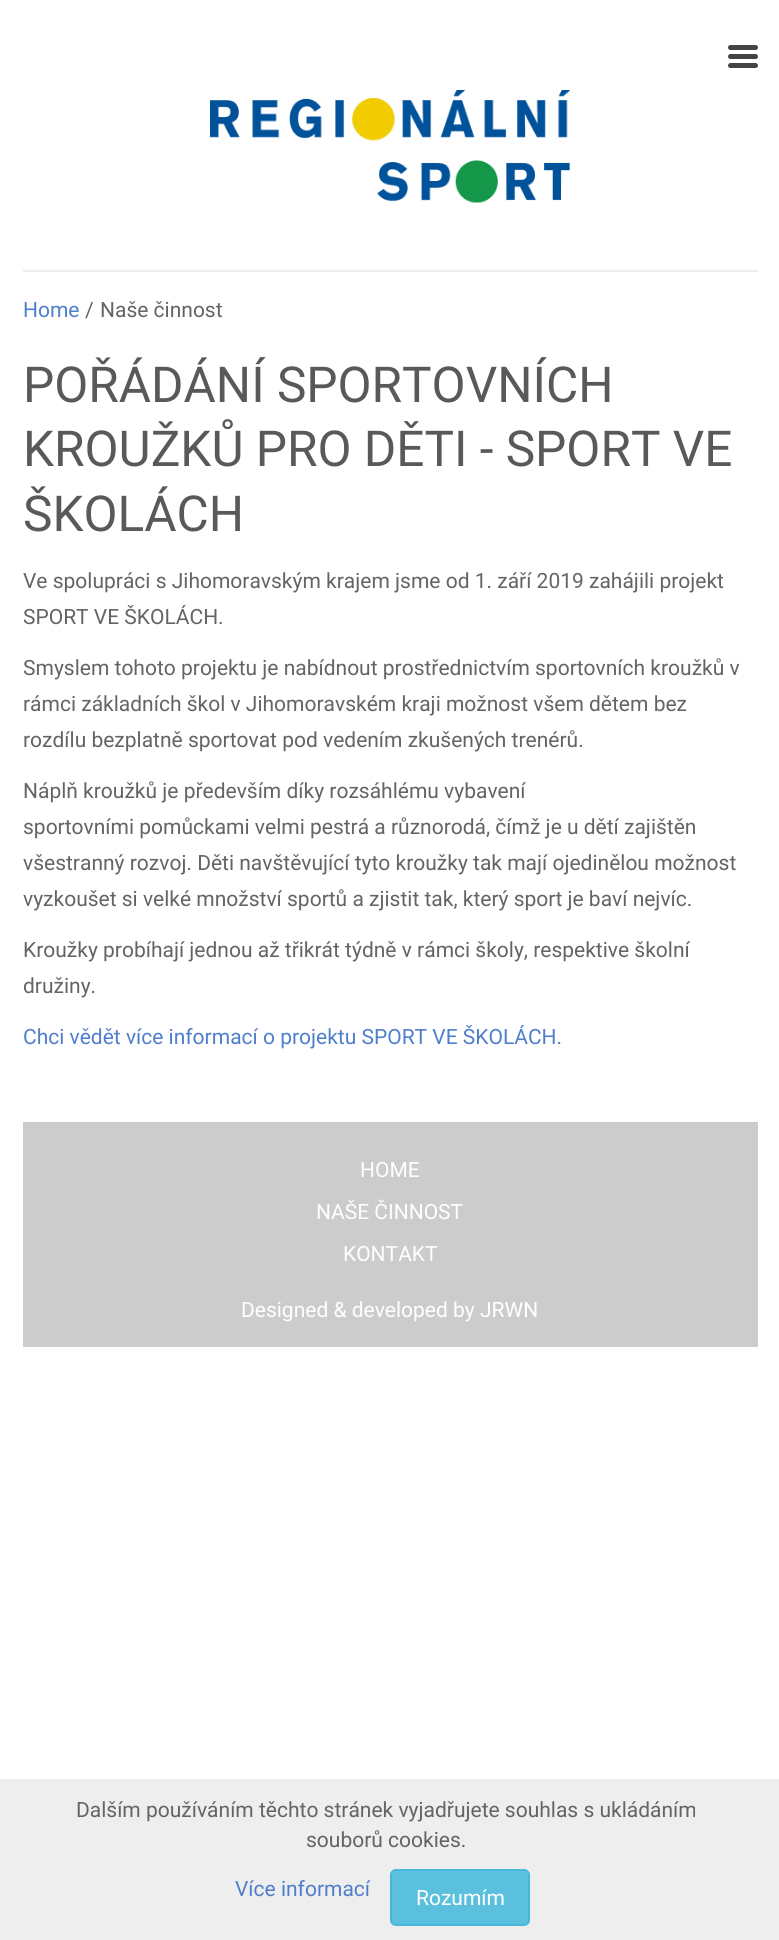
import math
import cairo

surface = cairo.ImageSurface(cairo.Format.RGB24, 779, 1940)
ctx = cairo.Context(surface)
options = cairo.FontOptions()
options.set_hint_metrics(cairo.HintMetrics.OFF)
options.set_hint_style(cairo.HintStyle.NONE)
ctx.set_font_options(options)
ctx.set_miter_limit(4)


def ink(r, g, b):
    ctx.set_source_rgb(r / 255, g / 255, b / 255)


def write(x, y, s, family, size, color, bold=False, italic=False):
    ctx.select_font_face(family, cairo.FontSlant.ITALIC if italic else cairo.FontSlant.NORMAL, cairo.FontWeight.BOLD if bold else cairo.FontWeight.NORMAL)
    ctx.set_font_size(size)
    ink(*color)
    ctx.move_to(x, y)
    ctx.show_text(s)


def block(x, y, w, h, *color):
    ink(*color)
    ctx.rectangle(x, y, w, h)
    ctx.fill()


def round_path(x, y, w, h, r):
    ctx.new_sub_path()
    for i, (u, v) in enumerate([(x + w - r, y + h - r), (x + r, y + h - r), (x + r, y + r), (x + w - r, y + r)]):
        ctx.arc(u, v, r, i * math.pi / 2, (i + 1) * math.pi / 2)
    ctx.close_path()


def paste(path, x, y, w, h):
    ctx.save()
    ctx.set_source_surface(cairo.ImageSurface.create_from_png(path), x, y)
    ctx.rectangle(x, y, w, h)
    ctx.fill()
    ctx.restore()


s1 = dict(family="Roboto", size=21, color=(79, 126, 204))
s2 = dict(family="Roboto", size=21, color=(99, 100, 102))
s3 = dict(family="Roboto", size=49.5, color=(88, 89, 91))
s4 = dict(family="Roboto", size=21, color=(255, 255, 255))

ink(255, 255, 255)
ctx.paint()
block(23, 270, 735, 2, 238, 238, 238)
ink(68, 68, 68)
round_path(728, 45, 30, 5, 2.5)
ctx.fill()
round_path(728, 54, 30, 5, 2.5)
ctx.fill()
round_path(728, 63, 30, 5, 2.5)
ctx.fill()
paste("pic1.png", 210, 90, 360, 113)
write(23, 317, "Home", **s1)
write(85, 317, "/", **s2)
write(100, 317, "Naše činnost", **s2)
write(23, 402, "POŘÁDÁNÍ SPORTOVNÍCH", **s3)
write(23, 466, "KROUŽKŮ PRO DĚTI - SPORT VE", **s3)
write(23, 531, "ŠKOLÁCH", **s3)
write(23, 588, "Ve spolupráci s Jihomoravským krajem jsme od 1. září 2019 zahájili projekt", **s2)
write(23, 624, "SPORT VE ŠKOLÁCH.", **s2)
write(23, 675, "Smyslem tohoto projektu je nabídnout prostřednictvím sportovních kroužků v", **s2)
write(23, 711, "rámci základních škol v Jihomoravském kraji možnost všem dětem bez", **s2)
write(23, 747, "rozdílu bezplatně sportovat pod vedením zkušených trenérů.", **s2)
write(23, 798, "Náplň kroužků je především díky rozsáhlému vybavení", **s2)
write(23, 834, "sportovními pomůckami velmi pestrá a různorodá, čímž je u dětí zajištěn", **s2)
write(23, 870, "všestranný rozvoj. Děti navštěvující tyto kroužky tak mají ojedinělou možnost", **s2)
write(23, 906, "vyzkoušet si velké množství sportů a zjistit tak, který sport je baví nejvíc.", **s2)
write(23, 957, "Kroužky probíhají jednou až třikrát týdně v rámci školy, respektive školní", **s2)
write(23, 993, "družiny.", **s2)
write(23, 1044, "Chci vědět více informací o projektu SPORT VE ŠKOLÁCH.", **s1)
block(23, 1122, 735, 225, 204, 204, 204)
write(360, 1177, "HOME", **s4)
write(316, 1219, "NAŠE ČINNOST", **s4)
write(343, 1261, "KONTAKT", **s4)
write(241, 1317, "Designed & developed by JRWN", **s4)
block(0, 1779, 779, 161, 238, 238, 238)
write(76, 1817, "Dalším používáním těchto stránek vyjadřujete souhlas s ukládáním", **s2)
write(306, 1847, "souborů cookies.", **s2)
write(235, 1896, "Více informací", **s1)
ink(91, 192, 222)
round_path(391, 1870, 138, 55, 5)
ctx.fill_preserve()
ink(70, 184, 218)
ctx.stroke()
write(416, 1905, "Rozumím", **s4)
surface.write_to_png("screenshot.png")
